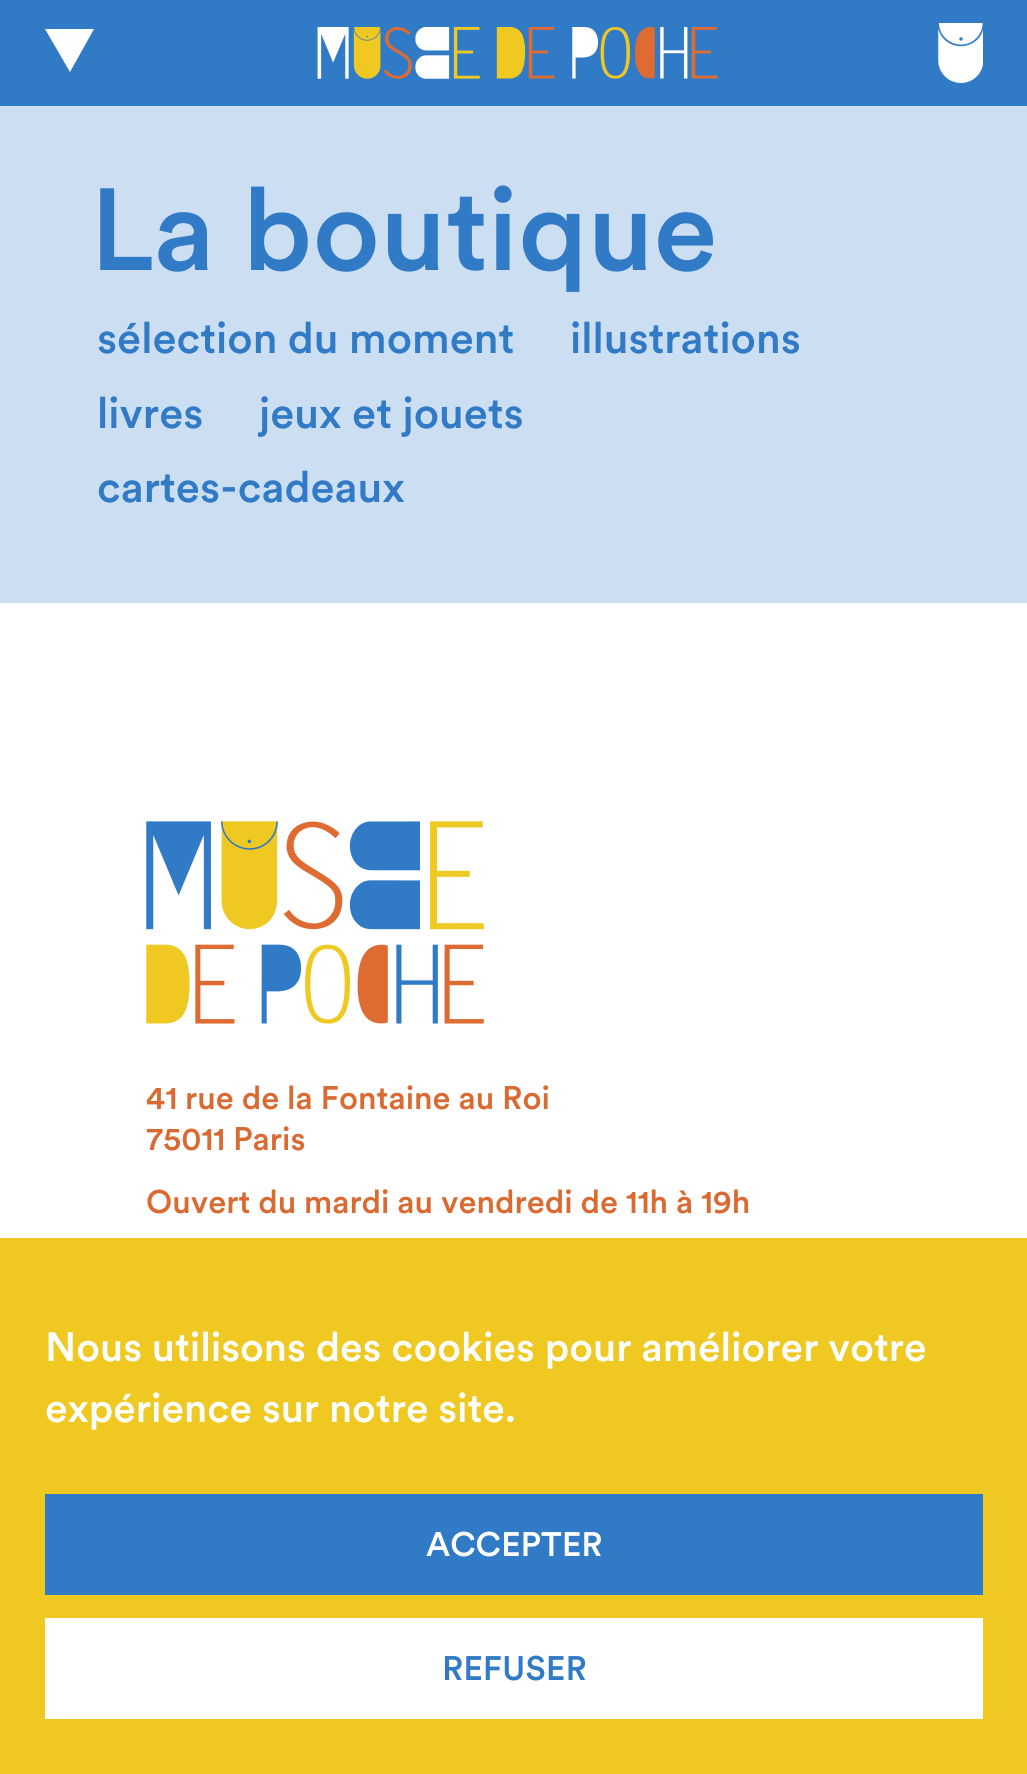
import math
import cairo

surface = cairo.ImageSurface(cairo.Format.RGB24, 1027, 1774)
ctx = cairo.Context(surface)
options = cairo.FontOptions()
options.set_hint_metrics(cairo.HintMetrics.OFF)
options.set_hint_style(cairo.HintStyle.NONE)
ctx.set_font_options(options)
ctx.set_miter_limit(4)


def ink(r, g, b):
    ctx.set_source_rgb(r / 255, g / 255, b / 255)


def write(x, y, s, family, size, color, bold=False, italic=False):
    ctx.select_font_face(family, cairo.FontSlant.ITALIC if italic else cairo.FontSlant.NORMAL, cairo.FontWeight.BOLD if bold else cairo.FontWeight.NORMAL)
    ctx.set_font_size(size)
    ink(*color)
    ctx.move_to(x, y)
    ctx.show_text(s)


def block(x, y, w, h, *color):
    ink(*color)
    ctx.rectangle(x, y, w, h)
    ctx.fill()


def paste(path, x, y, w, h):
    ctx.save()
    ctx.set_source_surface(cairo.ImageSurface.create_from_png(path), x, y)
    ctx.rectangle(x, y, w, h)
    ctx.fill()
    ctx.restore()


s1 = dict(family="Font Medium", size=115.25, color=(49, 122, 197))
s2 = dict(family="Font Medium", size=43.25, color=(49, 122, 197))
s3 = dict(family="Font Medium", size=32.4, color=(217, 106, 49))
s4 = dict(family="Font Medium", size=40.5, color=(255, 255, 255))
s5 = dict(family="Font Medium", size=33.75, color=(255, 255, 255))
s6 = dict(family="Font Medium", size=33.75, color=(49, 122, 197))

ink(255, 255, 255)
ctx.paint()
block(0, 0, 1027, 106, 49, 122, 197)
ink(255, 255, 255)
ctx.new_path()
ctx.move_to(70, 72)
ctx.line_to(94, 29)
ctx.line_to(45, 29)
ctx.close_path()
ctx.fill()
paste("pic1.png", 317, 27, 401, 52)
paste("pic2.png", 938, 23, 45, 60)
block(0, 106, 1027, 497, 204, 222, 241)
write(90, 270, "La boutique", **s1)
write(97, 353, "sélection du moment", **s2)
write(570, 353, "illustrations", **s2)
write(97, 428, "livres", **s2)
write(259, 428, "jeux et jouets", **s2)
write(97, 502, "cartes-cadeaux", **s2)
paste("pic3.png", 146, 821, 338, 203)
write(146, 1109, "41 rue de la Fontaine au Roi", **s3)
write(146, 1150, "75011 Paris", **s3)
write(146, 1213, "Ouvert du mardi au vendredi de 11h à 19h", **s3)
block(0, 1238, 1027, 536, 239, 200, 34)
write(45, 1361, "Nous utilisons des cookies pour améliorer votre", **s4)
write(45, 1422, "expérience sur notre site.", **s4)
block(45, 1494, 938, 101, 49, 122, 197)
write(426, 1556, "ACCEPTER", **s5)
block(45, 1618, 938, 101, 255, 255, 255)
write(442, 1680, "REFUSER", **s6)
surface.write_to_png("screenshot.png")
